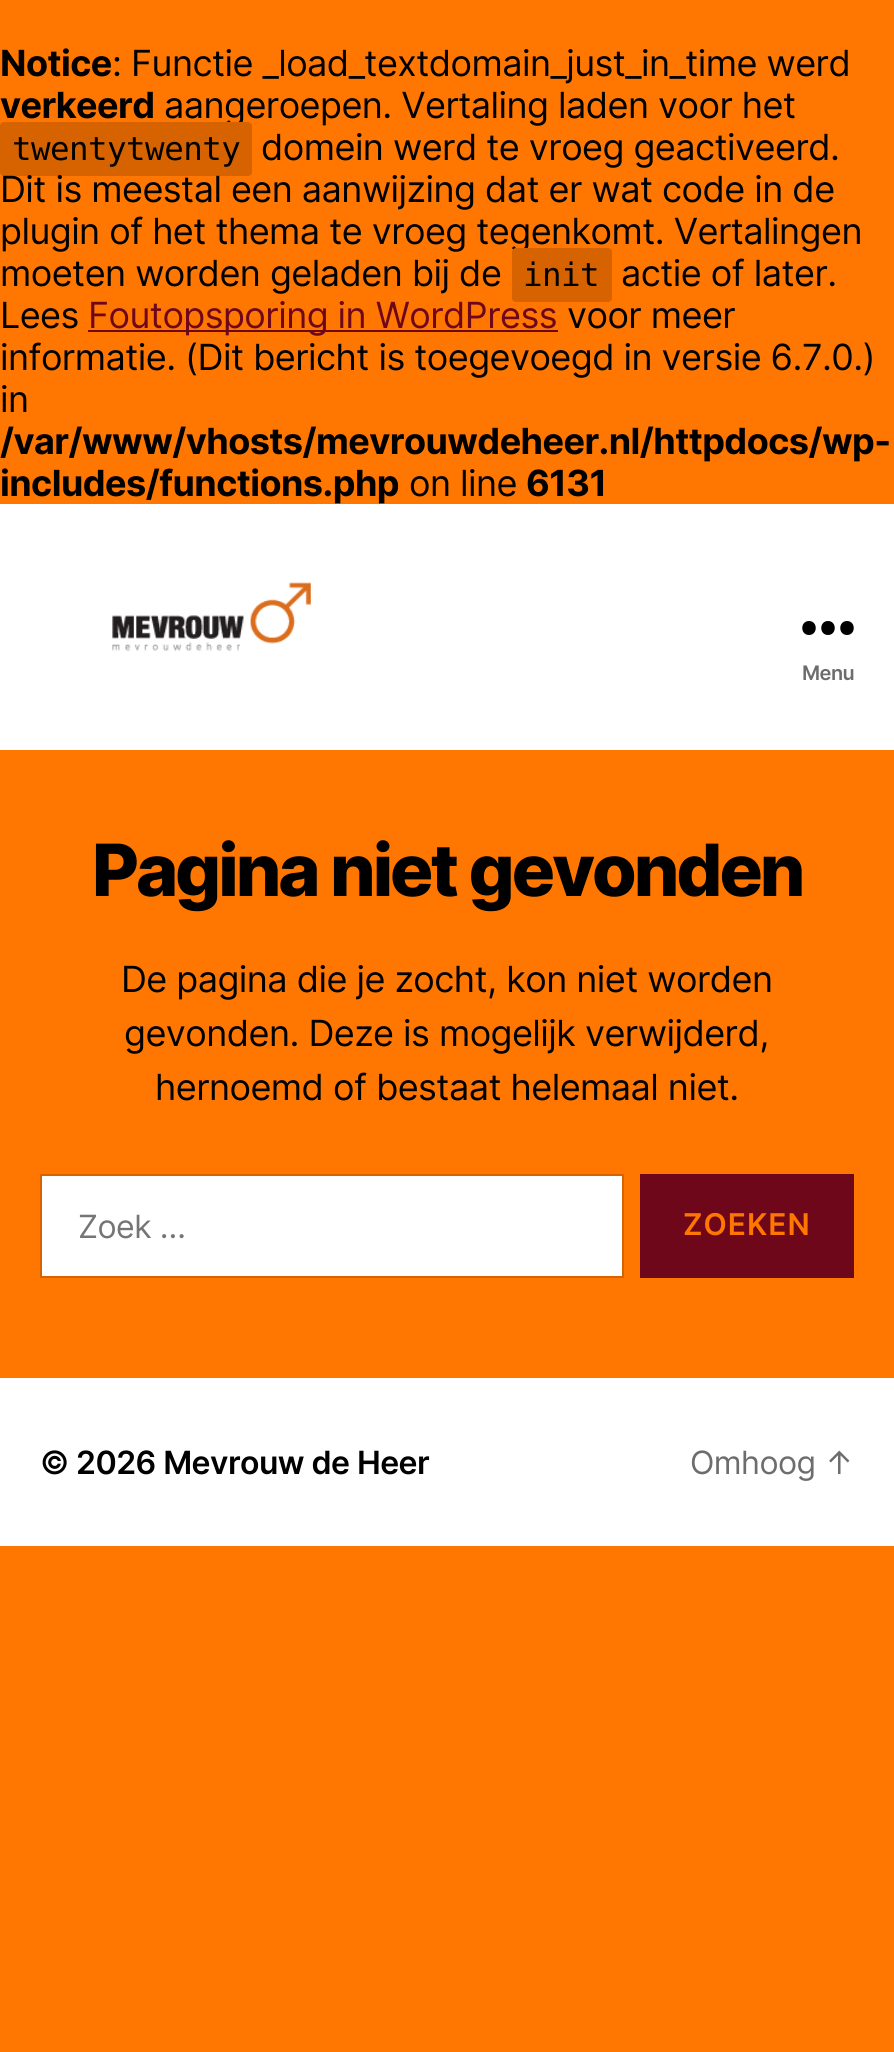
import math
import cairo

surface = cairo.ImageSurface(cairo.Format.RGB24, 894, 2052)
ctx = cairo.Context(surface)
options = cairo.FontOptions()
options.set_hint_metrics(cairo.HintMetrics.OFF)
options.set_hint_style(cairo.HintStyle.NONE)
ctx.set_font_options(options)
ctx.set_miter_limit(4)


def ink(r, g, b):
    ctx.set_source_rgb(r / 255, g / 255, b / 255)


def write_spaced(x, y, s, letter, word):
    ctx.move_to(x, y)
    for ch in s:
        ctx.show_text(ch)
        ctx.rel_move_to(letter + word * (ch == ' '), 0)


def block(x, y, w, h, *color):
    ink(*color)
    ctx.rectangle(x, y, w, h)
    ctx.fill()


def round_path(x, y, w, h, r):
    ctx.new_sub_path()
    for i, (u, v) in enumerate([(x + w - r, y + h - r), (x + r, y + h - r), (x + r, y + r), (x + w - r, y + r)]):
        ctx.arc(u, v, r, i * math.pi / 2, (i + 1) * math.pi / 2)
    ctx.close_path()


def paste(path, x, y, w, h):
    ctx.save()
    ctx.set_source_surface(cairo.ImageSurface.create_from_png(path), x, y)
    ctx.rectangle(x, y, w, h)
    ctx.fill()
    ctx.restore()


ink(255, 119, 0)
ctx.paint()
ctx.select_font_face("Inter", cairo.FontSlant.NORMAL, cairo.FontWeight.BOLD)
ctx.set_font_size(36)
ink(0, 0, 0)
write_spaced(0, 76, "Notice", -0.55, 0)
ctx.select_font_face("Inter")
write_spaced(112, 76, ": Functie _load_textdomain_just_in_time werd", -0.55, 0)
ctx.select_font_face("Inter", cairo.FontSlant.NORMAL, cairo.FontWeight.BOLD)
write_spaced(0, 118, "verkeerd", -0.55, 0)
ctx.select_font_face("Inter")
write_spaced(164, 118, "aangeroepen. Vertaling laden voor het", -0.55, 0)
ink(214, 99, 0)
round_path(0, 122, 252, 54, 4)
ctx.fill()
ctx.select_font_face("DejaVu Sans Mono")
ctx.set_font_size(32.5)
ink(0, 0, 0)
write_spaced(12, 160, "twentytwenty", -0.55, 0)
ctx.select_font_face("Inter")
ctx.set_font_size(36)
write_spaced(261, 160, "domein werd te vroeg geactiveerd.", -0.55, 0)
write_spaced(0, 202, "Dit is meestal een aanwijzing dat er wat code in de", -0.55, 0)
write_spaced(0, 244, "plugin of het thema te vroeg tegenkomt. Vertalingen", -0.55, 0)
write_spaced(0, 286, "moeten worden geladen bij de", -0.55, 0)
ink(214, 99, 0)
round_path(512, 248, 100, 54, 4)
ctx.fill()
ctx.select_font_face("DejaVu Sans Mono")
ctx.set_font_size(32.5)
ink(0, 0, 0)
write_spaced(523, 286, "init", -0.55, 0)
ctx.select_font_face("Inter")
ctx.set_font_size(36)
write_spaced(621, 286, "actie of later.", -0.55, 0)
write_spaced(0, 328, "Lees", -0.55, 0)
block(88, 330, 470, 2, 110, 7, 25)
write_spaced(88, 328, "Foutopsporing in WordPress", -0.55, 0)
ink(0, 0, 0)
write_spaced(567, 328, "voor meer", -0.55, 0)
write_spaced(0, 370, "informatie. (Dit bericht is toegevoegd in versie 6.7.0.)", -0.55, 0)
write_spaced(0, 412, "in", -0.55, 0)
ctx.select_font_face("Inter", cairo.FontSlant.NORMAL, cairo.FontWeight.BOLD)
write_spaced(0, 454, "/var/www/vhosts/mevrouwdeheer.nl/httpdocs/wp-", -0.55, 0)
write_spaced(0, 496, "includes/functions.php", -0.55, 0)
ctx.select_font_face("Inter")
write_spaced(409, 496, "on line", -0.55, 0)
ctx.select_font_face("Inter", cairo.FontSlant.NORMAL, cairo.FontWeight.BOLD)
write_spaced(526, 496, "6131", -0.55, 0)
block(0, 504, 894, 246, 255, 255, 255)
paste("pic1.png", 112, 582, 199, 69)
ink(0, 0, 0)
ctx.set_fill_rule(cairo.FillRule.EVEN_ODD)
ctx.new_path()
ctx.move_to(809, 635)
ctx.curve_to(800, 635, 800, 621, 809, 621)
ctx.curve_to(818, 621, 818, 635, 809, 635)
ctx.close_path()
ctx.move_to(828, 635)
ctx.curve_to(819, 635, 819, 621, 828, 621)
ctx.curve_to(837, 621, 837, 635, 828, 635)
ctx.close_path()
ctx.move_to(847, 635)
ctx.curve_to(838, 635, 838, 621, 847, 621)
ctx.curve_to(856, 621, 856, 635, 847, 635)
ctx.close_path()
ctx.fill()
ctx.select_font_face("Inter SemiBold")
ctx.set_font_size(20)
ink(109, 109, 109)
write_spaced(802, 680, "Menu", -0.55, 0)
ctx.select_font_face("Inter ExtraBold")
ctx.set_font_size(72)
ink(0, 0, 0)
write_spaced(92, 896, "Pagina niet gevonden", -3, 0)
ctx.select_font_face("Inter")
ctx.set_font_size(36)
write_spaced(121, 992, "De pagina die je zocht, kon niet worden", -0.55, 0)
write_spaced(124, 1046, "gevonden. Deze is mogelijk verwijderd,", -0.55, 0)
write_spaced(155, 1100, "hernoemd of bestaat helemaal niet.", -0.55, 0)
ink(255, 255, 255)
ctx.rectangle(41, 1175, 582, 102)
ctx.fill_preserve()
ink(214, 99, 0)
ctx.stroke()
ctx.set_font_size(32)
ink(117, 117, 117)
write_spaced(78, 1238, "Zoek …", -0.5, 0)
block(640, 1174, 214, 104, 110, 7, 25)
ctx.select_font_face("Inter SemiBold")
ctx.set_font_size(30)
ink(255, 119, 0)
write_spaced(683, 1235, "ZOEKEN", 1, 0)
block(0, 1378, 894, 168, 255, 255, 255)
ctx.set_font_size(32)
ink(0, 0, 0)
write_spaced(40, 1474, "© 2026 Mevrouw de Heer", -0.55, 0)
ctx.select_font_face("Inter")
ink(109, 109, 109)
write_spaced(690, 1474, "Omhoog ↑", -0.55, 0)
surface.write_to_png("screenshot.png")
